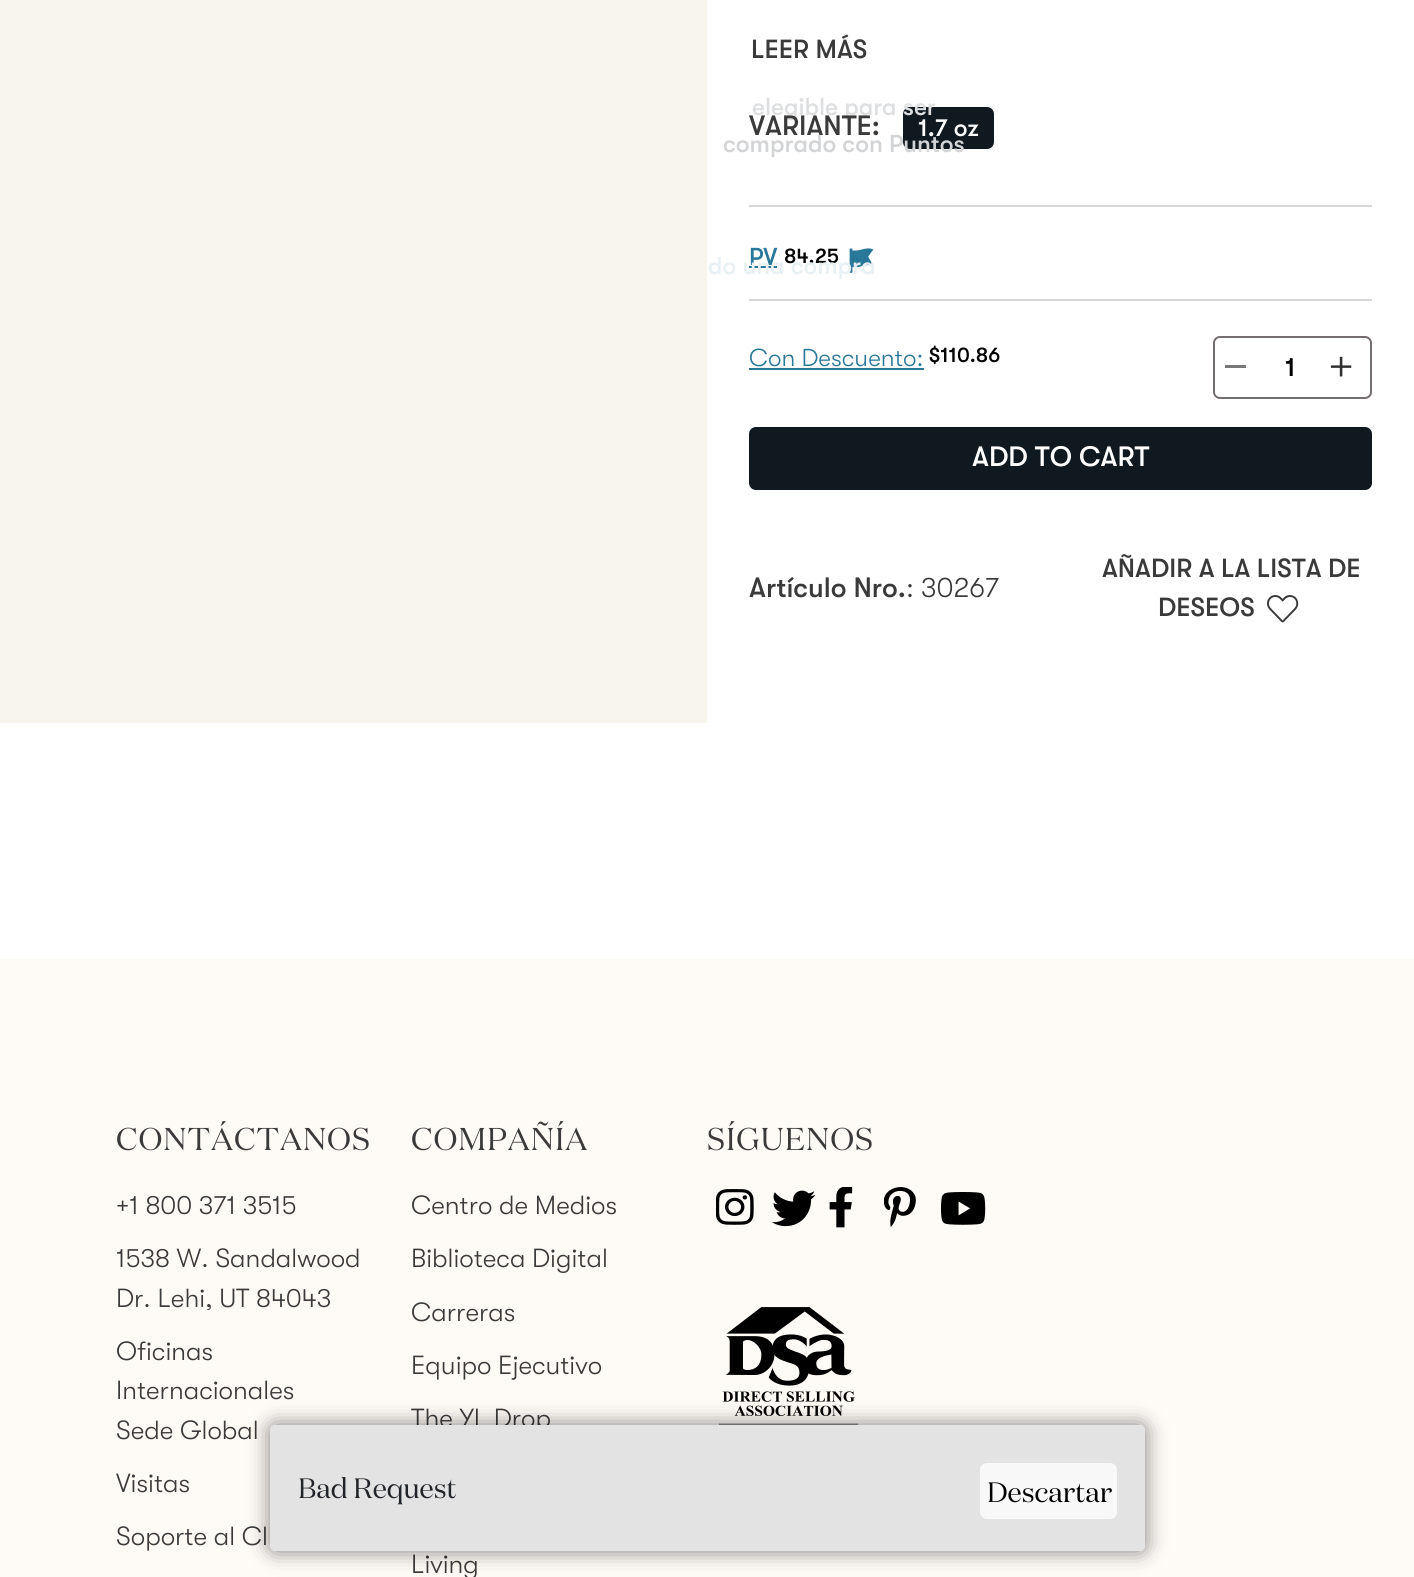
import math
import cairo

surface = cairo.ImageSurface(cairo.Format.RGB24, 1414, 1577)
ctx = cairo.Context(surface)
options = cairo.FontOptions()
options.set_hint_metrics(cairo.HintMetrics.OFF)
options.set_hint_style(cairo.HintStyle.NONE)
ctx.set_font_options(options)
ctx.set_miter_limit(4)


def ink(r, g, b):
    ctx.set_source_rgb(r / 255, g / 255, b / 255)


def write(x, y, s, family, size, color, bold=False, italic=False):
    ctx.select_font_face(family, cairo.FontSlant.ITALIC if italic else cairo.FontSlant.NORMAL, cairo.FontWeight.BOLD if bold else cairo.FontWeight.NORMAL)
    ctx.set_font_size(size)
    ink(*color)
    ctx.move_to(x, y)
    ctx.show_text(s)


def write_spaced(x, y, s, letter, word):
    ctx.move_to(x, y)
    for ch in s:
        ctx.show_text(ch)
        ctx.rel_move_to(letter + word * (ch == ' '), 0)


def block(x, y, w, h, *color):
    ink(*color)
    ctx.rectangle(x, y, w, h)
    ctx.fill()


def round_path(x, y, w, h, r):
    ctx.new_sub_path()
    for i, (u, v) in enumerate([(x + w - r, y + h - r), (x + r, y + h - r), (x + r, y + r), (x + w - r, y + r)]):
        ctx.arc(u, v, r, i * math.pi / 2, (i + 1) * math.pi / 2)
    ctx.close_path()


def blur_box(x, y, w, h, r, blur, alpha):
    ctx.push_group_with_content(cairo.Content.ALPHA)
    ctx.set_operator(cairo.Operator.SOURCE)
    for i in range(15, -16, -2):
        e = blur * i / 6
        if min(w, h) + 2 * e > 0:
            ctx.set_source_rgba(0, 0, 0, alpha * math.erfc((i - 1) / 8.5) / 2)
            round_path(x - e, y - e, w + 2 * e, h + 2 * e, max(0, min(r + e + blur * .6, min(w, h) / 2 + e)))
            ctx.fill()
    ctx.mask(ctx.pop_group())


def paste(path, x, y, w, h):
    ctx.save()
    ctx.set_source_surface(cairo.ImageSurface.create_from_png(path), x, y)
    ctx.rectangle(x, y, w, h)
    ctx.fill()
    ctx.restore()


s1 = dict(family="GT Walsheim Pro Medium", size=26.25, color=(58, 58, 58))
s2 = dict(family="GT Walsheim Pro Medium", size=24.5, color=(222, 223, 224))
s3 = dict(family="GT Walsheim Pro Medium", size=24.5, color=(211, 212, 214))
s4 = dict(family="GT Walsheim Pro Medium", size=24.5, color=(41, 119, 153))
s5 = dict(family="GT Walsheim Pro Medium", size=21, color=(0, 0, 0))
s6 = dict(family="GT Walsheim Pro Medium", size=28, color=(58, 58, 58))
s7 = dict(family="GT Walsheim Pro Medium", size=24.5, color=(255, 255, 255))
s8 = dict(family="GT Walsheim Pro Medium", size=24.5, color=(232, 240, 243))
s9 = dict(family="GT Walsheim Pro Light", size=24.5, color=(41, 119, 153))
s10 = dict(family="GT Walsheim Pro Medium", size=26.25, color=(0, 0, 0))
s11 = dict(family="GT Walsheim Pro Medium", size=28, color=(255, 255, 255))
s12 = dict(family="GT Walsheim Pro Light", size=28, color=(58, 58, 58))
s13 = dict(family="GT Walsheim Pro Light", size=26.25, color=(58, 58, 58))
s14 = dict(family="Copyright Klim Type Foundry", size=28, color=(33, 37, 41))
s15 = dict(family="Copyright Klim Type Foundry", size=28, color=(0, 0, 0))

ink(255, 255, 255)
ctx.paint()
block(0, 0, 707, 723, 248, 244, 238)
write(751, 58, "LEER MÁS", **s1)
block(749, 205, 623, 2, 215, 215, 215)
block(749, 299, 623, 2, 215, 215, 215)
ink(16, 24, 32)
round_path(904, 108, 89, 40, 6)
ctx.fill_preserve()
ctx.stroke()
write(752, 115, "elegible para ser", **s2)
write(723, 152, "comprado con Puntos", **s3)
paste("pic1.png", 849, 248, 25, 25)
write(749, 265, "PV", **s4)
block(749, 266, 28, 2, 41, 119, 153)
write(784, 263, "84.25", **s5)
write(749, 135, "VARIANTE:", **s6)
write(918, 136, "1.7 oz", **s7)
write(708, 274, "do una compra", **s8)
write(749, 366, "Con Descuento:", **s9)
block(749, 368, 175, 2, 41, 119, 153)
write(929, 362, "$110.86", **s5)
round_path(1214, 337, 157, 61, 6)
ink(116, 110, 110)
ctx.stroke()
block(1225, 365, 21, 3, 120, 120, 120)
write(1285, 376, "1", **s10)
paste("pic2.png", 1330, 356, 22, 21)
ink(16, 24, 32)
round_path(749, 427, 623, 63, 7)
ctx.fill()
write(972, 466, "ADD TO CART", **s11)
write(749, 597, "Artículo Nro.", **s6)
write(906, 597, ": 30267", **s12)
write(1102, 577, "AÑADIR A LA LISTA DE", **s1)
write(1158, 616, "DESEOS", **s1)
paste("pic3.png", 1267, 595, 32, 28)
block(0, 959, 1414, 618, 254, 250, 246)
ctx.select_font_face("Copyright Klim Type Foundry")
ctx.set_font_size(31.5)
ink(58, 58, 58)
write_spaced(116, 1150, "CONTÁCTANOS", 1, 0)
write(116, 1214, "+1 800 371 3515", **s13)
write(116, 1267, "1538 W. Sandalwood", **s13)
write(116, 1307, "Dr. Lehi, UT 84043", **s13)
write(116, 1360, "Oficinas", **s13)
write(116, 1399, "Internacionales", **s13)
write(116, 1439, "Sede Global", **s13)
write(116, 1492, "Visitas", **s13)
write(116, 1545, "Soporte al Cl", **s13)
ctx.select_font_face("Copyright Klim Type Foundry")
ctx.set_font_size(31.5)
write_spaced(411, 1150, "COMPAÑÍA", 1, 0)
write(411, 1214, "Centro de Medios", **s13)
write(411, 1267, "Biblioteca Digital", **s13)
write(411, 1321, "Carreras", **s13)
write(411, 1374, "Equipo Ejecutivo", **s13)
write(411, 1427, "The YL Drop", **s13)
write(411, 1573, "Living", **s13)
ctx.select_font_face("Copyright Klim Type Foundry")
ctx.set_font_size(31.5)
write_spaced(707, 1150, "SÍGUENOS", 1, 0)
paste("pic4.png", 716, 1189, 38, 36)
paste("pic5.png", 772, 1190, 44, 37)
paste("pic6.png", 829, 1187, 24, 41)
paste("pic7.png", 884, 1187, 32, 40)
paste("pic8.png", 940, 1192, 46, 33)
paste("pic9.png", 719, 1307, 140, 118)
ink(0, 0, 0)
blur_box(270, 1425, 875, 126, 5, 10.5, 0.5)
ink(228, 227, 227)
round_path(270, 1425, 875, 126, 5)
ctx.fill()
write(298, 1498, "Bad Request", **s14)
ink(248, 248, 248)
round_path(980, 1463, 137, 56, 7)
ctx.fill()
write(987, 1502, "Descartar", **s15)
surface.write_to_png("screenshot.png")
